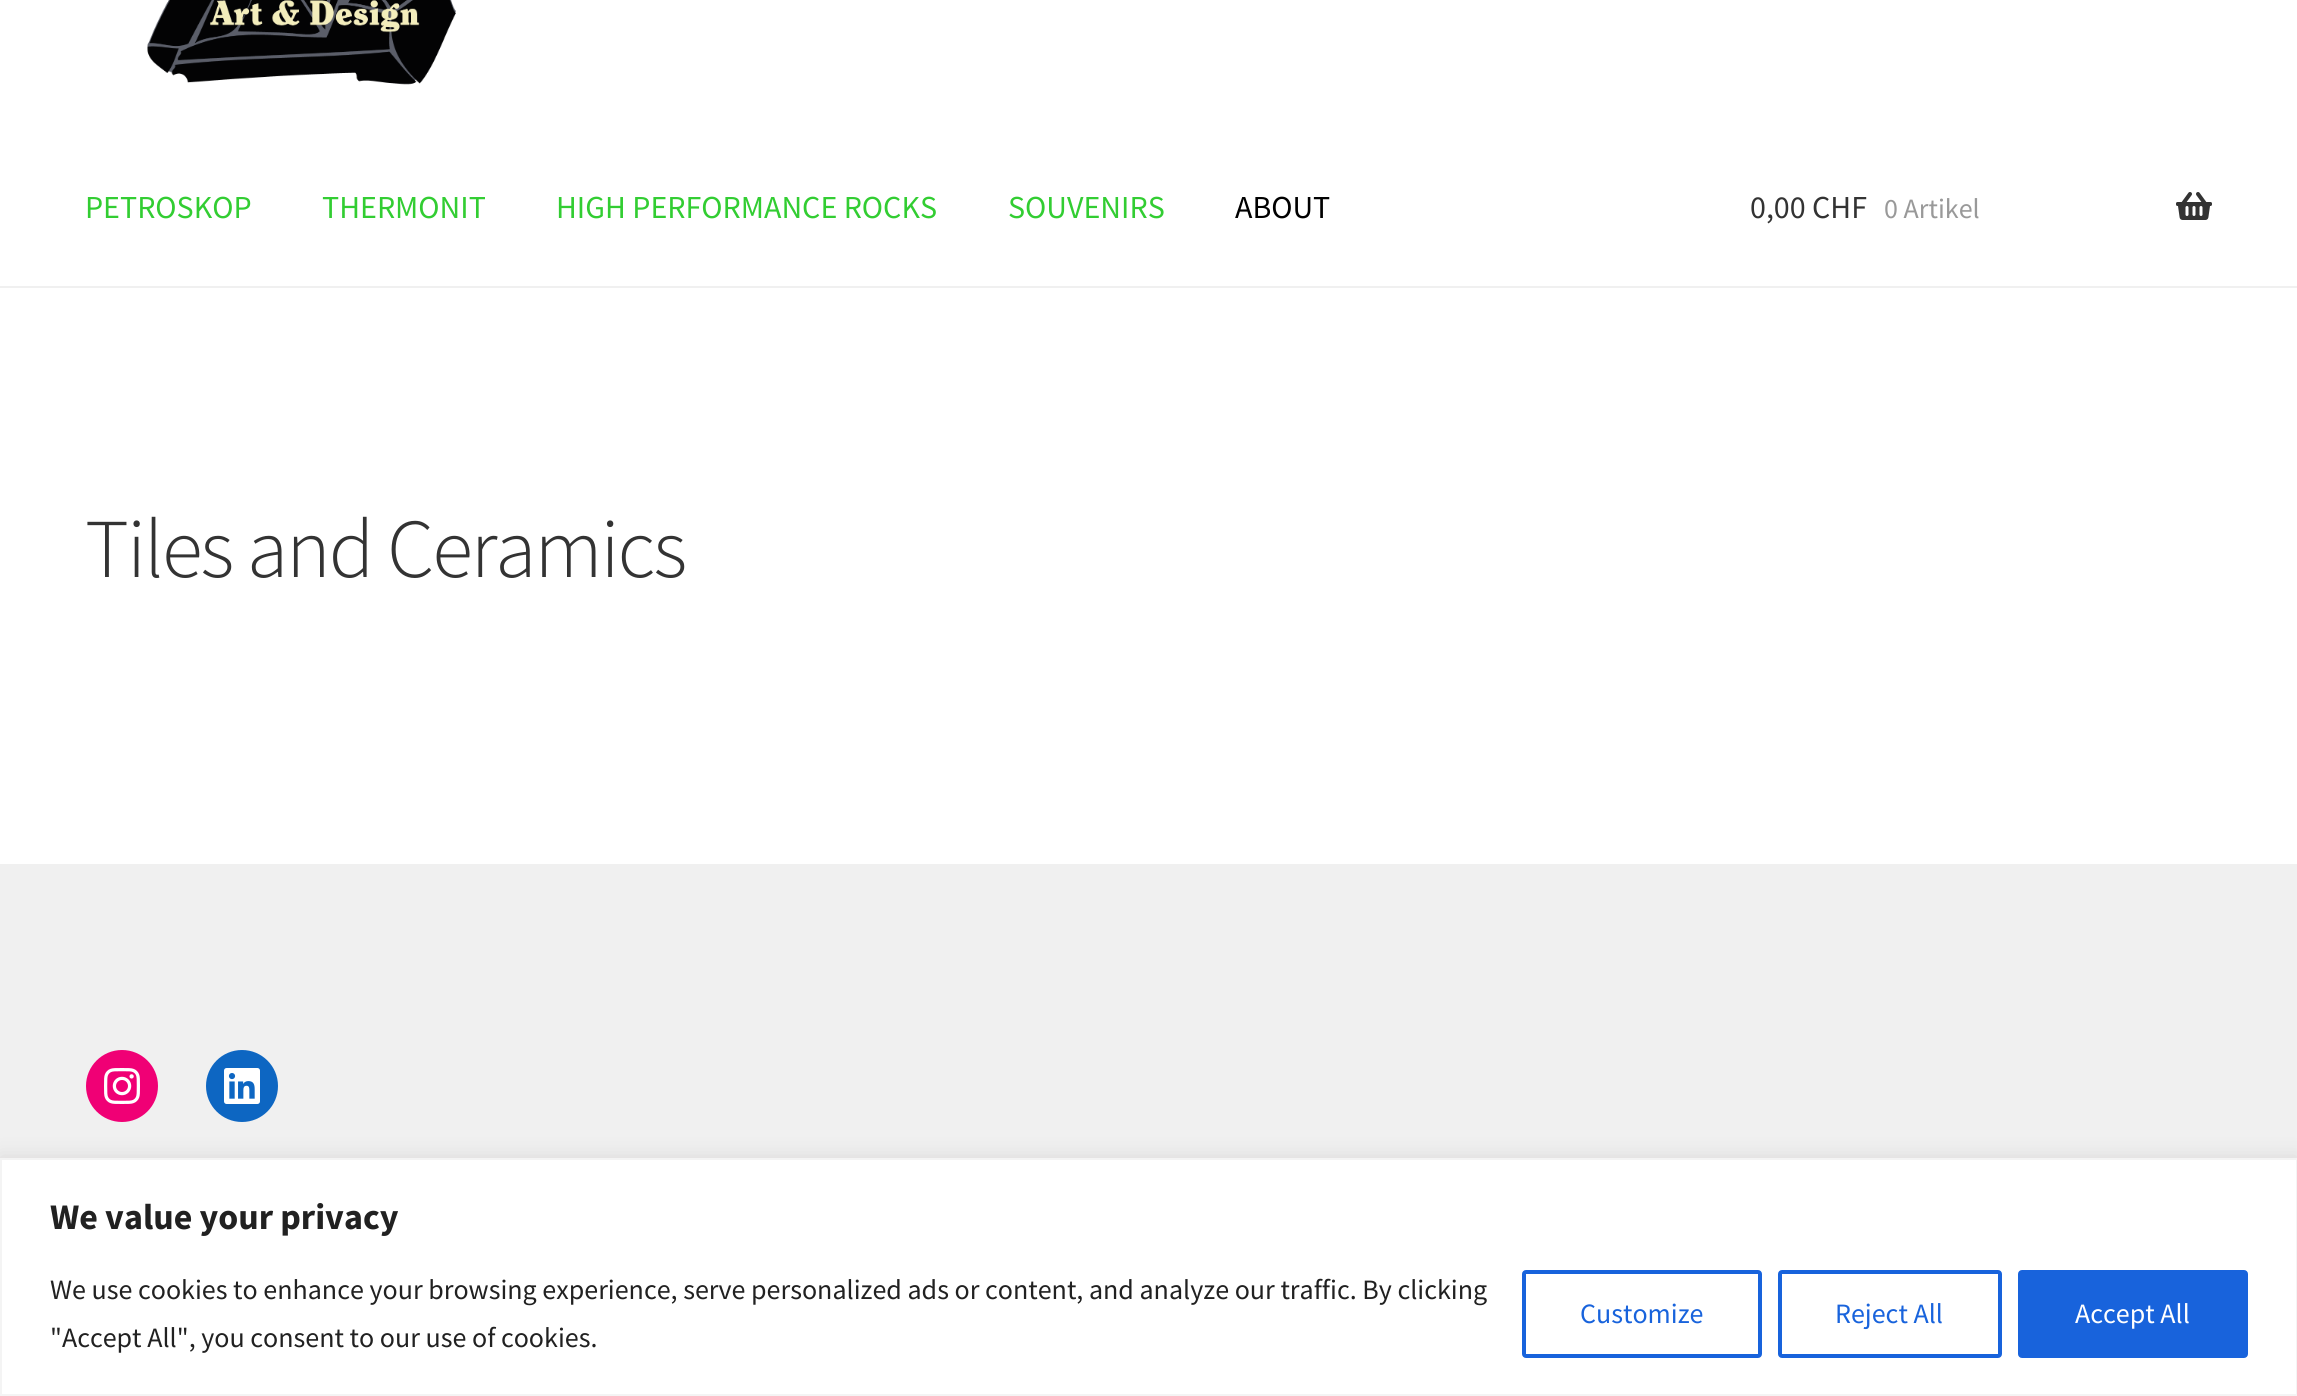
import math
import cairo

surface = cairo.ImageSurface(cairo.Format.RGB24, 2297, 1396)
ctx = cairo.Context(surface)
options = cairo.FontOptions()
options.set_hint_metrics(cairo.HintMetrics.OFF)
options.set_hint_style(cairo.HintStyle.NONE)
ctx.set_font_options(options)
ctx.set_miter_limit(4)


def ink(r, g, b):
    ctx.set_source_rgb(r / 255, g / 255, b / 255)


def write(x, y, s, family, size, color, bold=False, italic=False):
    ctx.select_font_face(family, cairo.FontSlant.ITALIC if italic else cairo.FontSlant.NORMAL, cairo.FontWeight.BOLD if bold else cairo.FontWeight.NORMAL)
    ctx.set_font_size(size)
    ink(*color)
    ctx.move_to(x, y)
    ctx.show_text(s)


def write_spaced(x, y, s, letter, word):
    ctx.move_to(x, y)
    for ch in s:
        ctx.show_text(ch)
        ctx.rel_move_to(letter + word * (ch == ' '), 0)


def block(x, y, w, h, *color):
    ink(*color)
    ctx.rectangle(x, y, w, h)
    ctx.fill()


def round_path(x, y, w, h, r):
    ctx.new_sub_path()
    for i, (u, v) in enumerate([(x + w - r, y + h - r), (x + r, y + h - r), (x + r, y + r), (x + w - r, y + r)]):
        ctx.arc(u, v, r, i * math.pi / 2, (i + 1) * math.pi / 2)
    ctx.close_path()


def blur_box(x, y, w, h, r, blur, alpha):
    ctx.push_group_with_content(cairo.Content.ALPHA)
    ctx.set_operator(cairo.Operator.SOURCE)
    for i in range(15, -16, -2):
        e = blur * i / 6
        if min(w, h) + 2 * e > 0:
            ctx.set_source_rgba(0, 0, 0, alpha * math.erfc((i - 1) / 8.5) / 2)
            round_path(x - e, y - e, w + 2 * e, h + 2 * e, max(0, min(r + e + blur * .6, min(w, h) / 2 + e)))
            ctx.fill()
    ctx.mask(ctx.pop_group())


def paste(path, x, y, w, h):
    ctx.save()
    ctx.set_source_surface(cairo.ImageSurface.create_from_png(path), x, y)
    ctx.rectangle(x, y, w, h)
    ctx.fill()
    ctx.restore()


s1 = dict(family="Source Sans Pro", size=32, color=(50, 205, 50))
s2 = dict(family="Source Sans Pro", size=32, color=(0, 0, 0))
s3 = dict(family="Source Sans Pro", size=32, color=(51, 51, 51))
s4 = dict(family="Source Sans Pro", size=28, color=(153, 153, 153))
s5 = dict(family="Source Sans Pro", size=36, color=(33, 33, 33), bold=True)
s6 = dict(family="Source Sans Pro", size=28, color=(33, 33, 33))
s7 = dict(family="Source Sans Pro", size=28, color=(24, 99, 220))
s8 = dict(family="Source Sans Pro", size=28, color=(255, 255, 255))

ink(255, 255, 255)
ctx.paint()
block(0, 286, 2297, 2, 240, 240, 240)
paste("pic1.png", 147, 0, 309, 85)
write(85, 218, "PETROSKOP", **s1)
write(322, 218, "THERMONIT", **s1)
write(556, 218, "HIGH PERFORMANCE ROCKS", **s1)
write(1008, 218, "SOUVENIRS", **s1)
write(1235, 218, "ABOUT", **s2)
write(1750, 218, "0,00 CHF", **s3)
write(1884, 218, "0 Artikel", **s4)
paste("pic2.png", 2176, 192, 36, 28)
ctx.select_font_face("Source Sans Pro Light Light")
ctx.set_font_size(83.75)
ink(51, 51, 51)
write_spaced(85, 577, "Tiles and Ceramics", -2, 0)
block(0, 864, 2297, 294, 240, 240, 240)
ink(240, 0, 117)
ctx.new_path()
ctx.arc(122, 1086, 36, 0, 2 * math.pi)
ctx.fill()
paste("pic3.png", 104, 1068, 36, 36)
ink(13, 102, 194)
ctx.arc(242, 1086, 36, 0, 2 * math.pi)
ctx.fill()
paste("pic4.png", 224, 1068, 36, 36)
ink(172, 171, 171)
blur_box(0, 1156, 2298, 238, 0, 10, 0.3)
ink(255, 255, 255)
ctx.rectangle(1, 1159, 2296, 236)
ctx.fill_preserve()
ink(244, 244, 244)
ctx.stroke()
write(50, 1229, "We value your privacy", **s5)
write(50, 1299, "We use cookies to enhance your browsing experience, serve personalized ads or content, and analyze our traffic. By clicking", **s6)
write(50, 1347, "\"Accept All\", you consent to our use of cookies.", **s6)
round_path(1524, 1272, 236, 84, 2)
ink(24, 99, 220)
ctx.set_line_width(4)
ctx.stroke()
write(1580, 1323, "Customize", **s7)
round_path(1780, 1272, 220, 84, 2)
ctx.stroke()
write(1835, 1323, "Reject All", **s7)
round_path(2020, 1272, 226, 84, 2)
ctx.fill_preserve()
ctx.stroke()
write(2075, 1323, "Accept All", **s8)
surface.write_to_png("screenshot.png")
